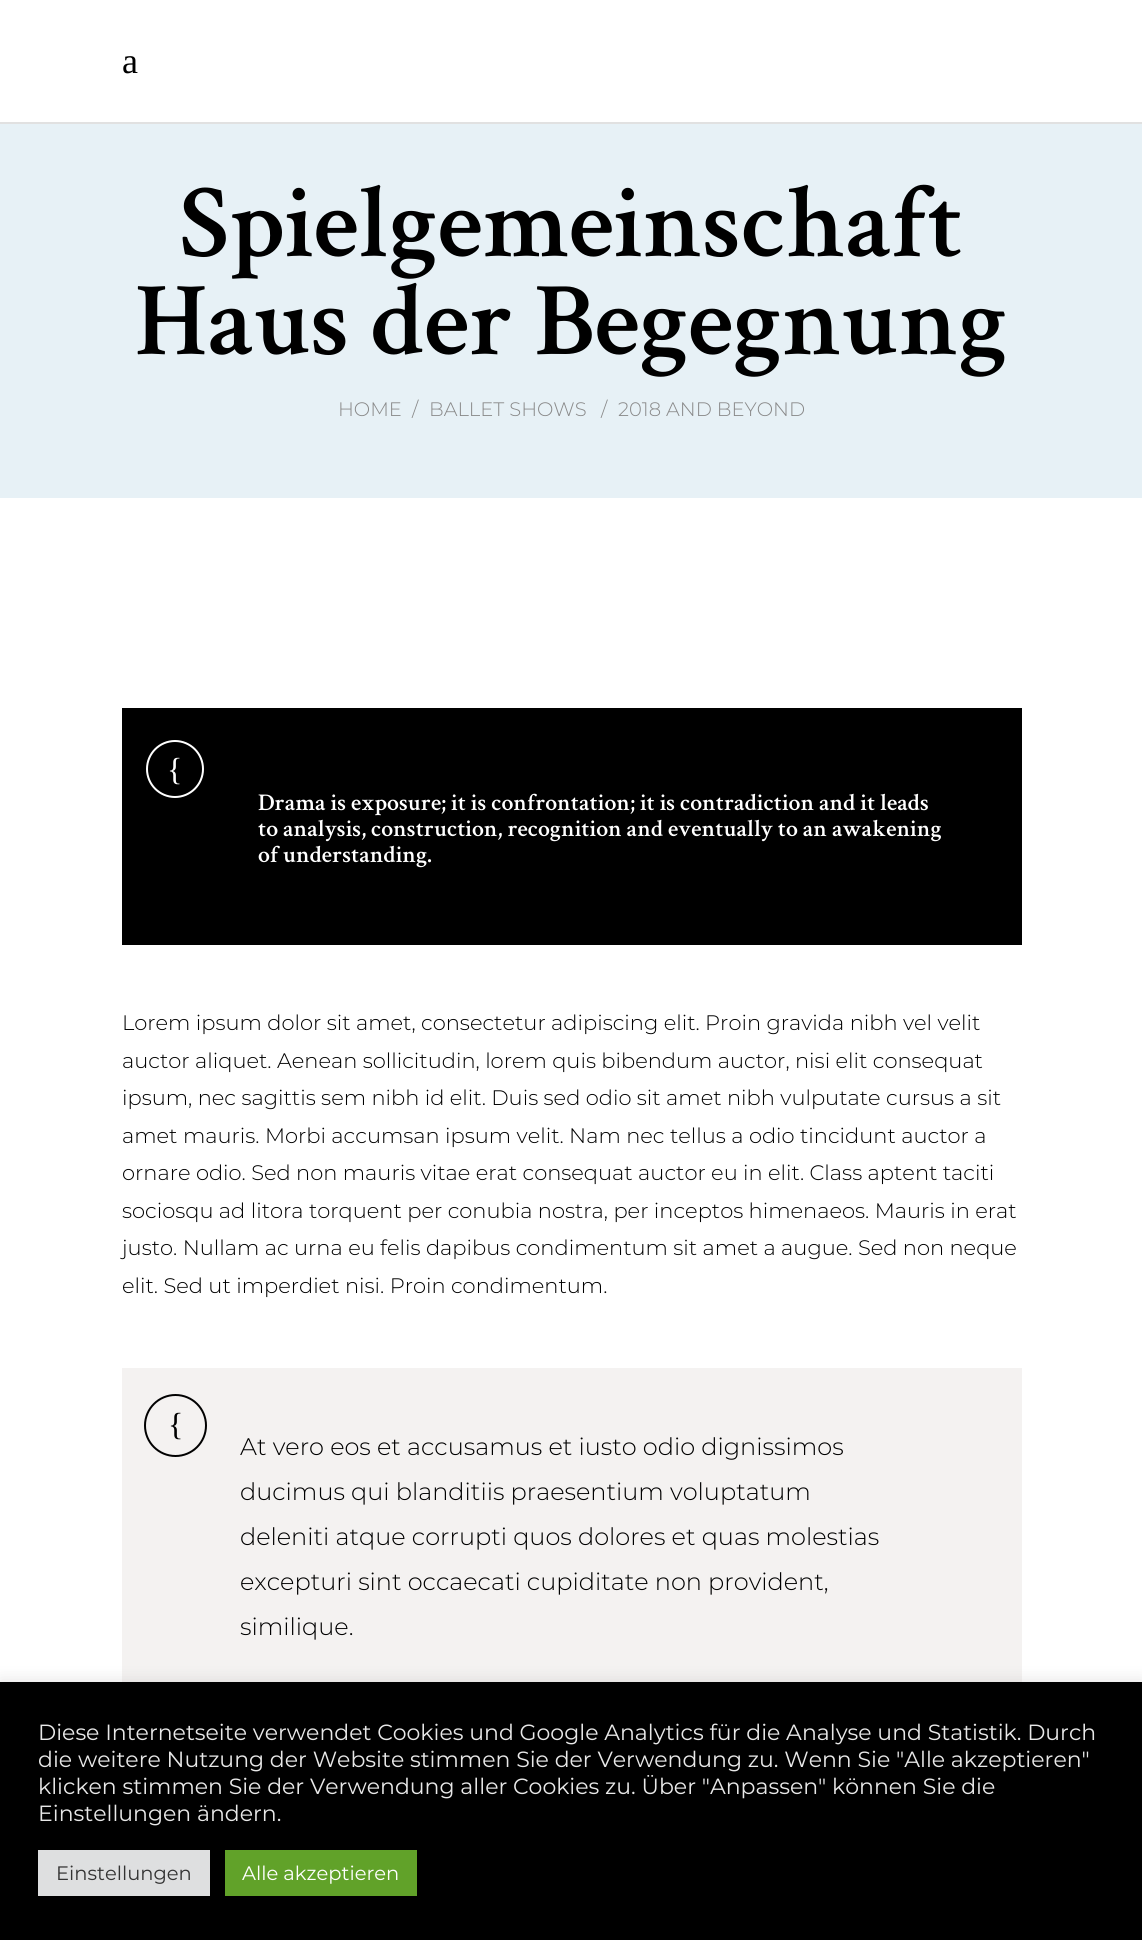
import math
import cairo

surface = cairo.ImageSurface(cairo.Format.RGB24, 1142, 1940)
ctx = cairo.Context(surface)
options = cairo.FontOptions()
options.set_hint_metrics(cairo.HintMetrics.OFF)
options.set_hint_style(cairo.HintStyle.NONE)
ctx.set_font_options(options)
ctx.set_miter_limit(4)


def ink(r, g, b):
    ctx.set_source_rgb(r / 255, g / 255, b / 255)


def write(x, y, s, family, size, color, bold=False, italic=False):
    ctx.select_font_face(family, cairo.FontSlant.ITALIC if italic else cairo.FontSlant.NORMAL, cairo.FontWeight.BOLD if bold else cairo.FontWeight.NORMAL)
    ctx.set_font_size(size)
    ink(*color)
    ctx.move_to(x, y)
    ctx.show_text(s)


def block(x, y, w, h, *color):
    ink(*color)
    ctx.rectangle(x, y, w, h)
    ctx.fill()


def round_path(x, y, w, h, r):
    ctx.new_sub_path()
    for i, (u, v) in enumerate([(x + w - r, y + h - r), (x + r, y + h - r), (x + r, y + r), (x + w - r, y + r)]):
        ctx.arc(u, v, r, i * math.pi / 2, (i + 1) * math.pi / 2)
    ctx.close_path()


def blur_box(x, y, w, h, r, blur, alpha):
    ctx.push_group_with_content(cairo.Content.ALPHA)
    ctx.set_operator(cairo.Operator.SOURCE)
    for i in range(15, -16, -2):
        e = blur * i / 6
        if min(w, h) + 2 * e > 0:
            ctx.set_source_rgba(0, 0, 0, alpha * math.erfc((i - 1) / 8.5) / 2)
            round_path(x - e, y - e, w + 2 * e, h + 2 * e, max(0, min(r + e + blur * .6, min(w, h) / 2 + e)))
            ctx.fill()
    ctx.mask(ctx.pop_group())


s1 = dict(family="Liberation Serif", size=36, color=(0, 0, 0))
s2 = dict(family="Crimson Text SemiBold", size=105, color=(0, 0, 0))
s3 = dict(family="Montserrat Light", size=19.5, color=(137, 137, 137))
s4 = dict(family="Liberation Serif", size=32, color=(255, 255, 255))
s5 = dict(family="Crimson Text SemiBold", size=24, color=(255, 255, 255))
s6 = dict(family="Montserrat Light", size=21, color=(0, 0, 0))
s7 = dict(family="Liberation Serif", size=32, color=(0, 0, 0))
s8 = dict(family="Montserrat Light", size=24, color=(0, 0, 0))
s9 = dict(family="Montserrat", size=22, color=(232, 232, 232))
s10 = dict(family="Montserrat", size=19.5, color=(51, 51, 51))
s11 = dict(family="Montserrat", size=19.5, color=(255, 255, 255))

ink(255, 255, 255)
ctx.paint()
block(0, 122, 1142, 2, 225, 225, 225)
write(122, 73, "a", **s1)
block(0, 124, 1142, 374, 231, 241, 246)
write(179, 256, "Spielgemeinschaft", **s2)
write(135, 354, "Haus der Begegnung", **s2)
write(338, 416, "HOME", **s3)
write(412, 416, "/", **s3)
write(429, 416, "BALLET SHOWS", **s3)
write(601, 416, "/", **s3)
write(618, 416, "2018 AND BEYOND", **s3)
block(122, 708, 900, 237, 0, 0, 0)
ctx.new_path()
ctx.arc(175, 769, 28, 0, 2 * math.pi)
ink(255, 255, 255)
ctx.stroke()
write(167, 780, "{", **s4)
write(258, 810, "Drama is exposure; it is confrontation; it is contradiction and it leads", **s5)
write(258, 836, "to analysis, construction, recognition and eventually to an awakening", **s5)
write(258, 862, "of understanding.", **s5)
write(122, 1030, "Lorem ipsum dolor sit amet, consectetur adipiscing elit. Proin gravida nibh vel velit", **s6)
write(122, 1068, "auctor aliquet. Aenean sollicitudin, lorem quis bibendum auctor, nisi elit consequat", **s6)
write(122, 1105, "ipsum, nec sagittis sem nibh id elit. Duis sed odio sit amet nibh vulputate cursus a sit", **s6)
write(122, 1143, "amet mauris. Morbi accumsan ipsum velit. Nam nec tellus a odio tincidunt auctor a", **s6)
write(122, 1180, "ornare odio. Sed non mauris vitae erat consequat auctor eu in elit. Class aptent taciti", **s6)
write(122, 1218, "sociosqu ad litora torquent per conubia nostra, per inceptos himenaeos. Mauris in erat", **s6)
write(122, 1255, "justo. Nullam ac urna eu felis dapibus condimentum sit amet a augue. Sed non neque", **s6)
write(122, 1293, "elit. Sed ut imperdiet nisi. Proin condimentum.", **s6)
block(122, 1368, 900, 314, 244, 242, 241)
ctx.new_path()
ctx.arc(175.5, 1425.5, 30.5, 0, 2 * math.pi)
ink(1, 1, 1)
ctx.stroke()
write(168, 1435, "{", **s7)
write(240, 1455, "At vero eos et accusamus et iusto odio dignissimos", **s8)
write(240, 1500, "ducimus qui blanditiis praesentium voluptatum", **s8)
write(240, 1545, "deleniti atque corrupti quos dolores et quas molestias", **s8)
write(240, 1590, "excepturi sint occaecati cupiditate non provident,", **s8)
write(240, 1635, "similique.", **s8)
ink(172, 171, 171)
blur_box(0, 1680, 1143, 260, 0, 7.5, 0.3)
block(0, 1682, 1142, 258, 0, 0, 0)
write(38, 1740, "Diese Internetseite verwendet Cookies und Google Analytics für die Analyse und Statistik. Durch", **s9)
write(38, 1767, "die weitere Nutzung der Website stimmen Sie der Verwendung zu. Wenn Sie \"Alle akzeptieren\"", **s9)
write(38, 1794, "klicken stimmen Sie der Verwendung aller Cookies zu. Über \"Anpassen\" können Sie die", **s9)
write(38, 1821, "Einstellungen ändern.", **s9)
block(38, 1850, 172, 46, 222, 223, 224)
write(56, 1880, "Einstellungen", **s10)
block(225, 1850, 192, 46, 97, 162, 41)
write(242, 1880, "Alle akzeptieren", **s11)
surface.write_to_png("screenshot.png")
